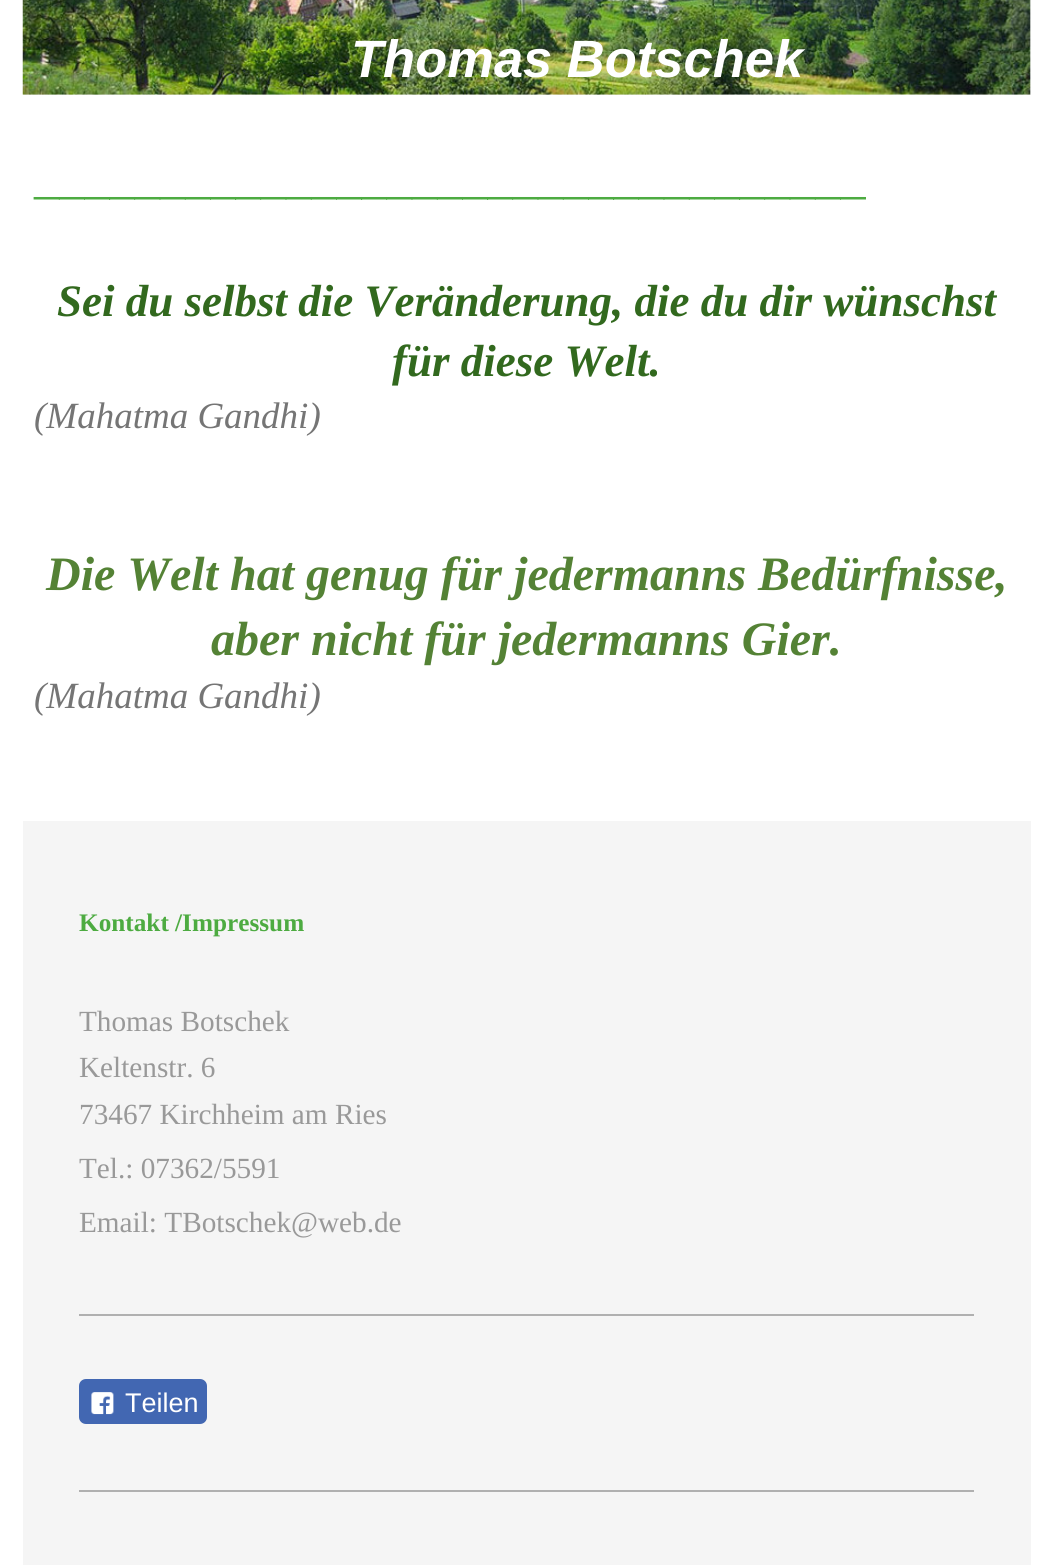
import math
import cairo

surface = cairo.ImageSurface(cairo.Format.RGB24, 1053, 1565)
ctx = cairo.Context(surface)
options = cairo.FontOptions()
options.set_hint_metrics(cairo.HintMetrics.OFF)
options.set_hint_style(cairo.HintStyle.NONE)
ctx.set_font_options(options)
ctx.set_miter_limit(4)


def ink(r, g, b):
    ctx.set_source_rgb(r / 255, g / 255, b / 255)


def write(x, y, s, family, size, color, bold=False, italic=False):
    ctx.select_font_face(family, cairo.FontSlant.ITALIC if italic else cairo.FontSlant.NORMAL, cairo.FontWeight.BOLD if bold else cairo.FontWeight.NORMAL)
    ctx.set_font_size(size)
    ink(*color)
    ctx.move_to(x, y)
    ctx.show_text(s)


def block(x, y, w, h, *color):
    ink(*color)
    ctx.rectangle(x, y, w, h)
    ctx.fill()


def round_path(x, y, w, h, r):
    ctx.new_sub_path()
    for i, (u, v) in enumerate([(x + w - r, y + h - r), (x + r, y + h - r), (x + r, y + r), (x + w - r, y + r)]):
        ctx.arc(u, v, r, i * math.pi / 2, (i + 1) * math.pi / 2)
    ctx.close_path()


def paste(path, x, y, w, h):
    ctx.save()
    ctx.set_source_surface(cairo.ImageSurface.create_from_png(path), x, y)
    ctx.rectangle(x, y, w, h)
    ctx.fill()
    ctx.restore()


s1 = dict(family="Liberation Sans", size=52.5, color=(255, 255, 255), bold=True, italic=True)
s2 = dict(family="Liberation Serif", size=50.4, color=(77, 171, 65), italic=True)
s3 = dict(family="Liberation Serif", size=45, color=(50, 105, 30), bold=True, italic=True)
s4 = dict(family="Liberation Serif", size=37, color=(117, 117, 117), italic=True)
s5 = dict(family="Liberation Serif", size=48, color=(84, 130, 53), bold=True, italic=True)
s6 = dict(family="Liberation Serif", size=25.25, color=(77, 171, 65), bold=True)
s7 = dict(family="Liberation Serif", size=29.25, color=(153, 153, 153))
s8 = dict(family="Liberation Sans", size=27, color=(255, 255, 255))

ink(255, 255, 255)
ctx.paint()
block(23, 0, 1008, 95, 238, 238, 238)
paste("pic1.png", 22, 0, 1009, 95)
write(351, 77, "Thomas Botschek", **s1)
write(34, 193, "_________________________________", **s2)
write(57, 316, "Sei du selbst die Veränderung, die du dir wünschst", **s3)
write(392, 376, "für diese Welt.", **s3)
write(34, 428, "(Mahatma Gandhi)", **s4)
write(46, 590, "Die Welt hat genug für jedermanns Bedürfnisse,", **s5)
write(211, 655, "aber nicht für jedermanns Gier.", **s5)
write(34, 708, "(Mahatma Gandhi)", **s4)
block(23, 821, 1008, 744, 245, 245, 245)
write(79, 931, "Kontakt /Impressum", **s6)
write(79, 1031, "Thomas Botschek", **s7)
write(79, 1077, "Keltenstr. 6", **s7)
write(79, 1124, "73467 Kirchheim am Ries", **s7)
write(79, 1178, "Tel.: 07362/5591", **s7)
write(79, 1232, "Email: TBotschek@web.de", **s7)
block(79, 1314, 895, 2, 176, 176, 176)
ink(66, 103, 178)
round_path(79, 1379, 128, 45, 7)
ctx.fill()
paste("pic2.png", 91, 1392, 23, 23)
write(125, 1412, "Teilen", **s8)
block(79, 1490, 895, 2, 176, 176, 176)
surface.write_to_png("screenshot.png")
